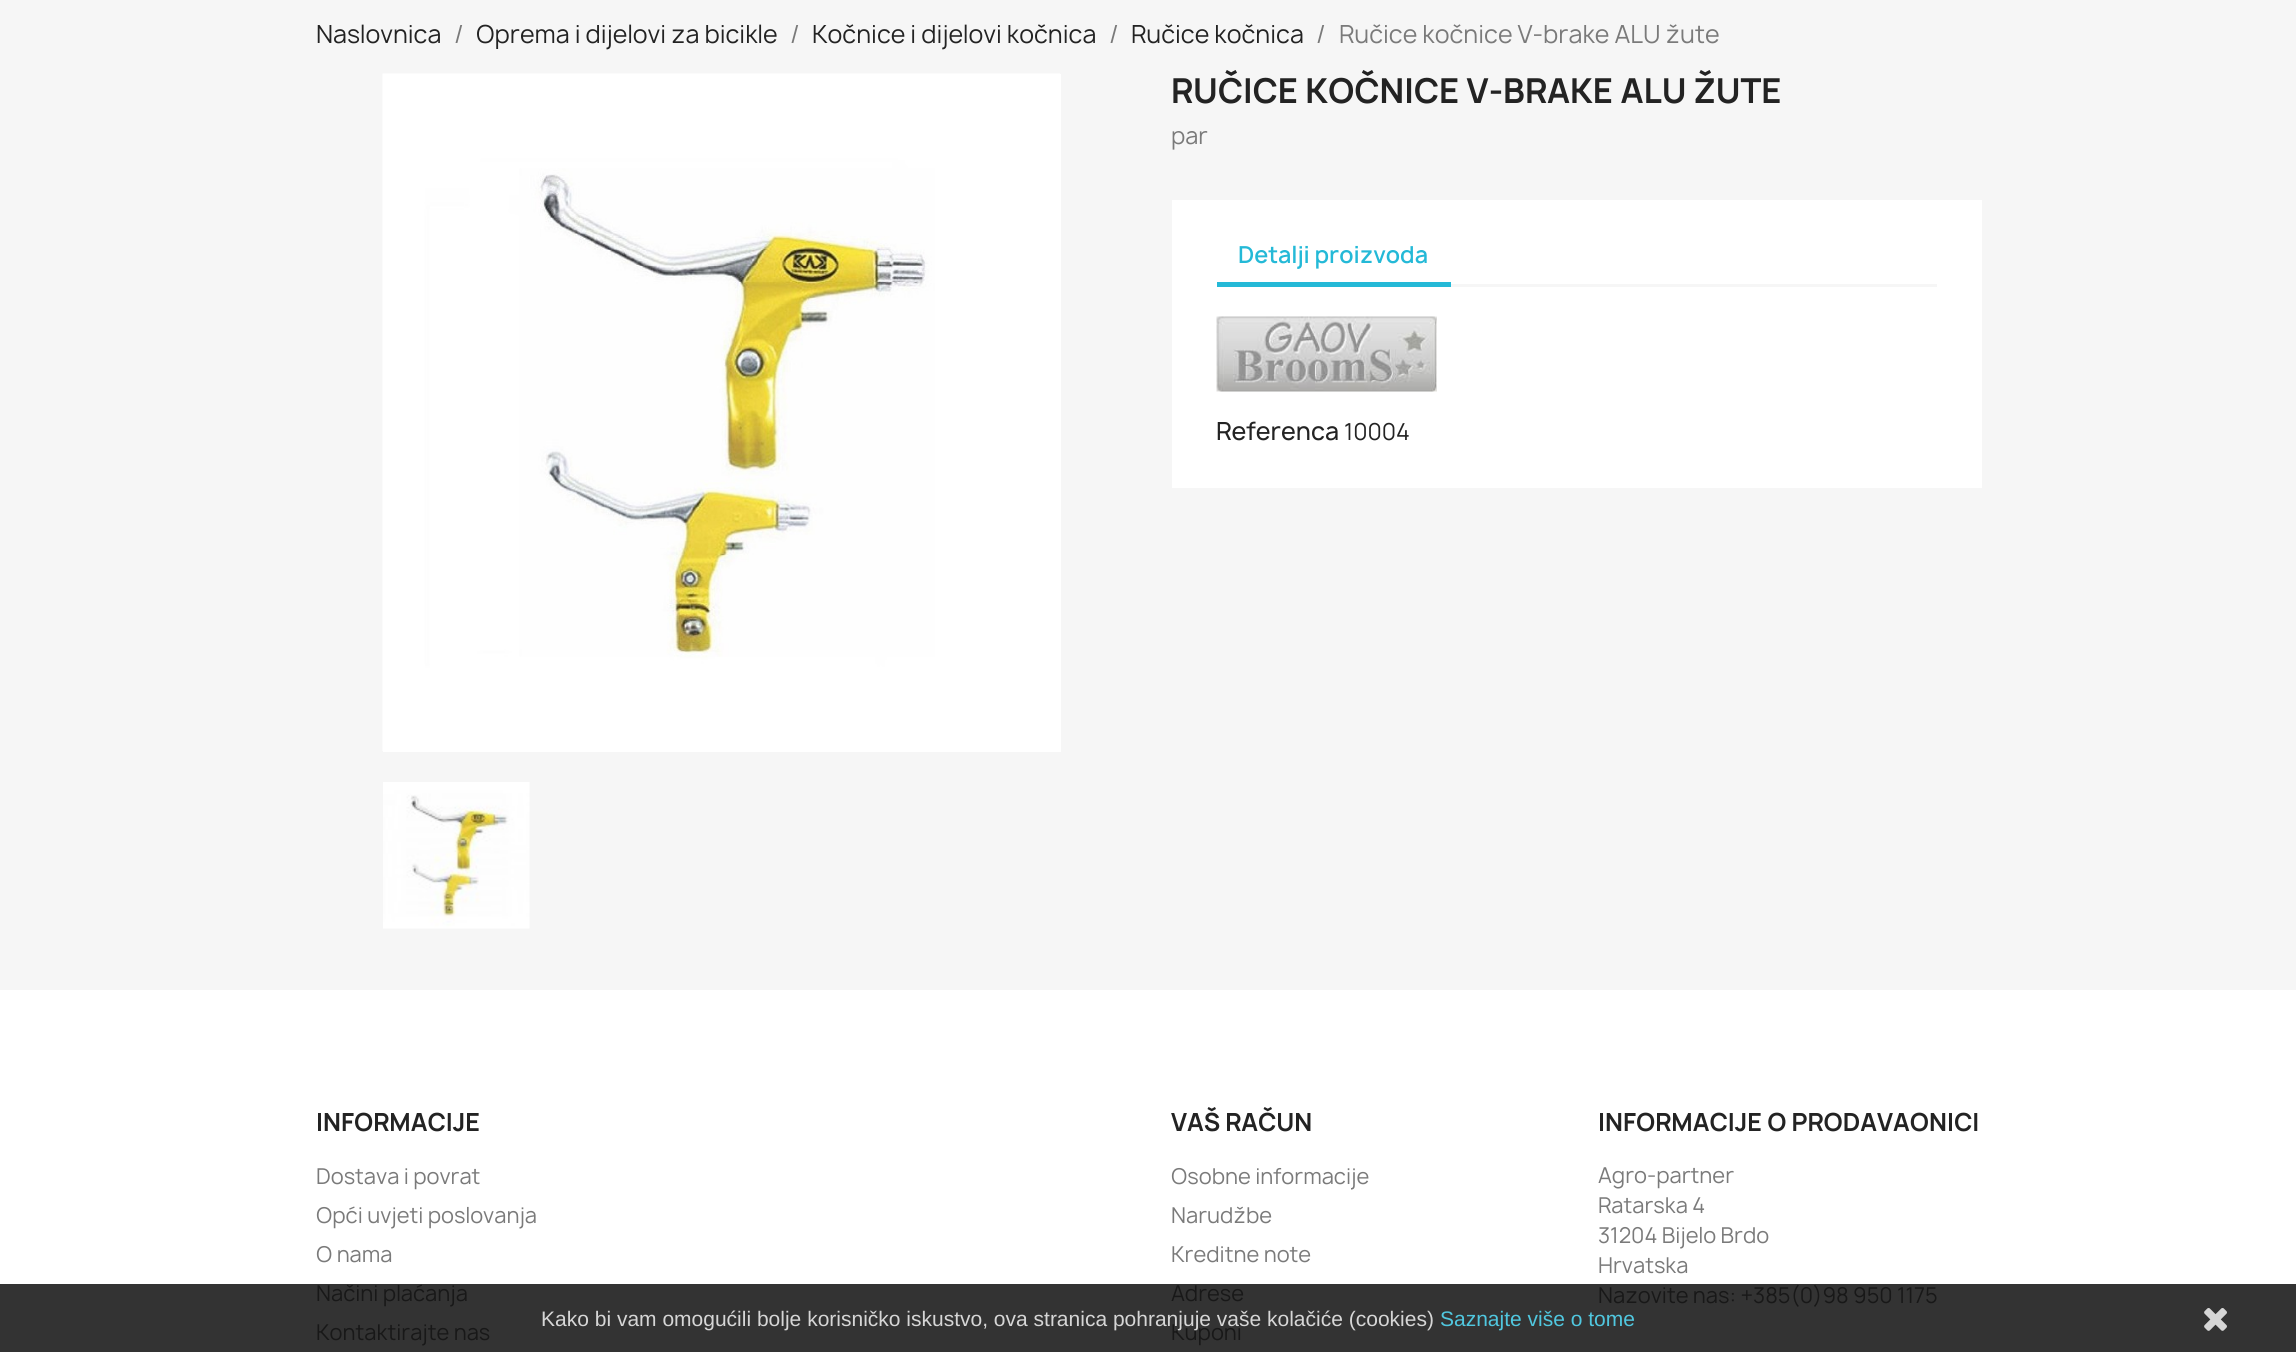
import math
import cairo

surface = cairo.ImageSurface(cairo.Format.RGB24, 2296, 1352)
ctx = cairo.Context(surface)
options = cairo.FontOptions()
options.set_hint_metrics(cairo.HintMetrics.OFF)
options.set_hint_style(cairo.HintStyle.NONE)
ctx.set_font_options(options)
ctx.set_miter_limit(4)


def ink(r, g, b):
    ctx.set_source_rgb(r / 255, g / 255, b / 255)


def write(x, y, s, family, size, color, bold=False, italic=False):
    ctx.select_font_face(family, cairo.FontSlant.ITALIC if italic else cairo.FontSlant.NORMAL, cairo.FontWeight.BOLD if bold else cairo.FontWeight.NORMAL)
    ctx.set_font_size(size)
    ink(*color)
    ctx.move_to(x, y)
    ctx.show_text(s)


def block(x, y, w, h, *color):
    ink(*color)
    ctx.rectangle(x, y, w, h)
    ctx.fill()


def paste(path, x, y, w, h):
    ctx.save()
    ctx.set_source_surface(cairo.ImageSurface.create_from_png(path), x, y)
    ctx.rectangle(x, y, w, h)
    ctx.fill()
    ctx.restore()


s1 = dict(family="Manrope", size=24, color=(35, 35, 35))
s2 = dict(family="Manrope", size=24, color=(122, 122, 122))
s3 = dict(family="Manrope", size=33, color=(35, 35, 35), bold=True)
s4 = dict(family="Manrope", size=22.5, color=(122, 122, 122))
s5 = dict(family="Manrope SemiBold", size=22.5, color=(36, 185, 215))
s6 = dict(family="Manrope Medium", size=24, color=(35, 35, 35))
s7 = dict(family="Manrope", size=22.5, color=(35, 35, 35))
s8 = dict(family="Manrope", size=24, color=(35, 35, 35), bold=True)
s9 = dict(family="Manrope", size=21, color=(122, 122, 122))
s10 = dict(family="Manrope", size=21, color=(24, 24, 24))
s11 = dict(family="Liberation Sans", size=21, color=(214, 214, 214))
s12 = dict(family="Liberation Sans", size=21, color=(80, 199, 223))

ink(255, 255, 255)
ctx.paint()
block(0, 1284, 2296, 68, 51, 51, 51)
block(0, 0, 2296, 990, 246, 246, 246)
write(316, 43, "Naslovnica", **s1)
write(454, 43, "/", **s2)
write(476, 43, "Oprema i dijelovi za bicikle", **s1)
write(790, 43, "/", **s2)
write(812, 43, "Kočnice i dijelovi kočnica", **s1)
write(1109, 43, "/", **s2)
write(1131, 43, "Ručice kočnica", **s1)
write(1316, 43, "/", **s2)
write(1339, 43, "Ručice kočnice V-brake ALU žute", **s2)
block(383, 74, 678, 678, 255, 255, 255)
paste("pic1.png", 382, 73, 678, 678)
paste("pic2.png", 383, 782, 147, 147)
write(1171, 103, "RUČICE KOČNICE V-BRAKE ALU ŽUTE", **s3)
write(1171, 144, "par", **s4)
block(1172, 200, 810, 288, 255, 255, 255)
block(1451, 284, 486, 3, 246, 246, 246)
block(1217, 282, 234, 5, 36, 185, 215)
write(1238, 263, "Detalji proizvoda", **s5)
paste("pic3.png", 1216, 316, 221, 76)
write(1216, 440, "Referenca", **s6)
write(1344, 440, "10004", **s7)
write(316, 1131, "INFORMACIJE", **s8)
write(316, 1184, "Dostava i povrat", **s9)
write(316, 1223, "Opći uvjeti poslovanja", **s9)
write(316, 1262, "O nama", **s9)
write(316, 1301, "Načini plaćanja", **s10)
write(316, 1340, "Kontaktirajte nas", **s10)
write(1171, 1131, "VAŠ RAČUN", **s8)
write(1171, 1184, "Osobne informacije", **s9)
write(1171, 1223, "Narudžbe", **s9)
write(1171, 1262, "Kreditne note", **s9)
write(1171, 1301, "Adrese", **s10)
write(1171, 1340, "Kuponi", **s10)
write(1598, 1131, "INFORMACIJE O PRODAVAONICI", **s8)
write(1598, 1183, "Agro-partner", **s9)
write(1598, 1213, "Ratarska 4", **s9)
write(1598, 1243, "31204 Bijelo Brdo", **s9)
write(1598, 1273, "Hrvatska", **s9)
write(1598, 1303, "Nazovite nas: +385(0)98 950 1175", **s10)
write(541, 1326, "Kako bi vam omogućili bolje korisničko iskustvo, ova stranica pohranjuje vaše kolačiće (cookies)", **s11)
write(1440, 1326, "Saznajte više o tome", **s12)
paste("pic4.png", 2204, 1308, 23, 23)
surface.write_to_png("screenshot.png")
